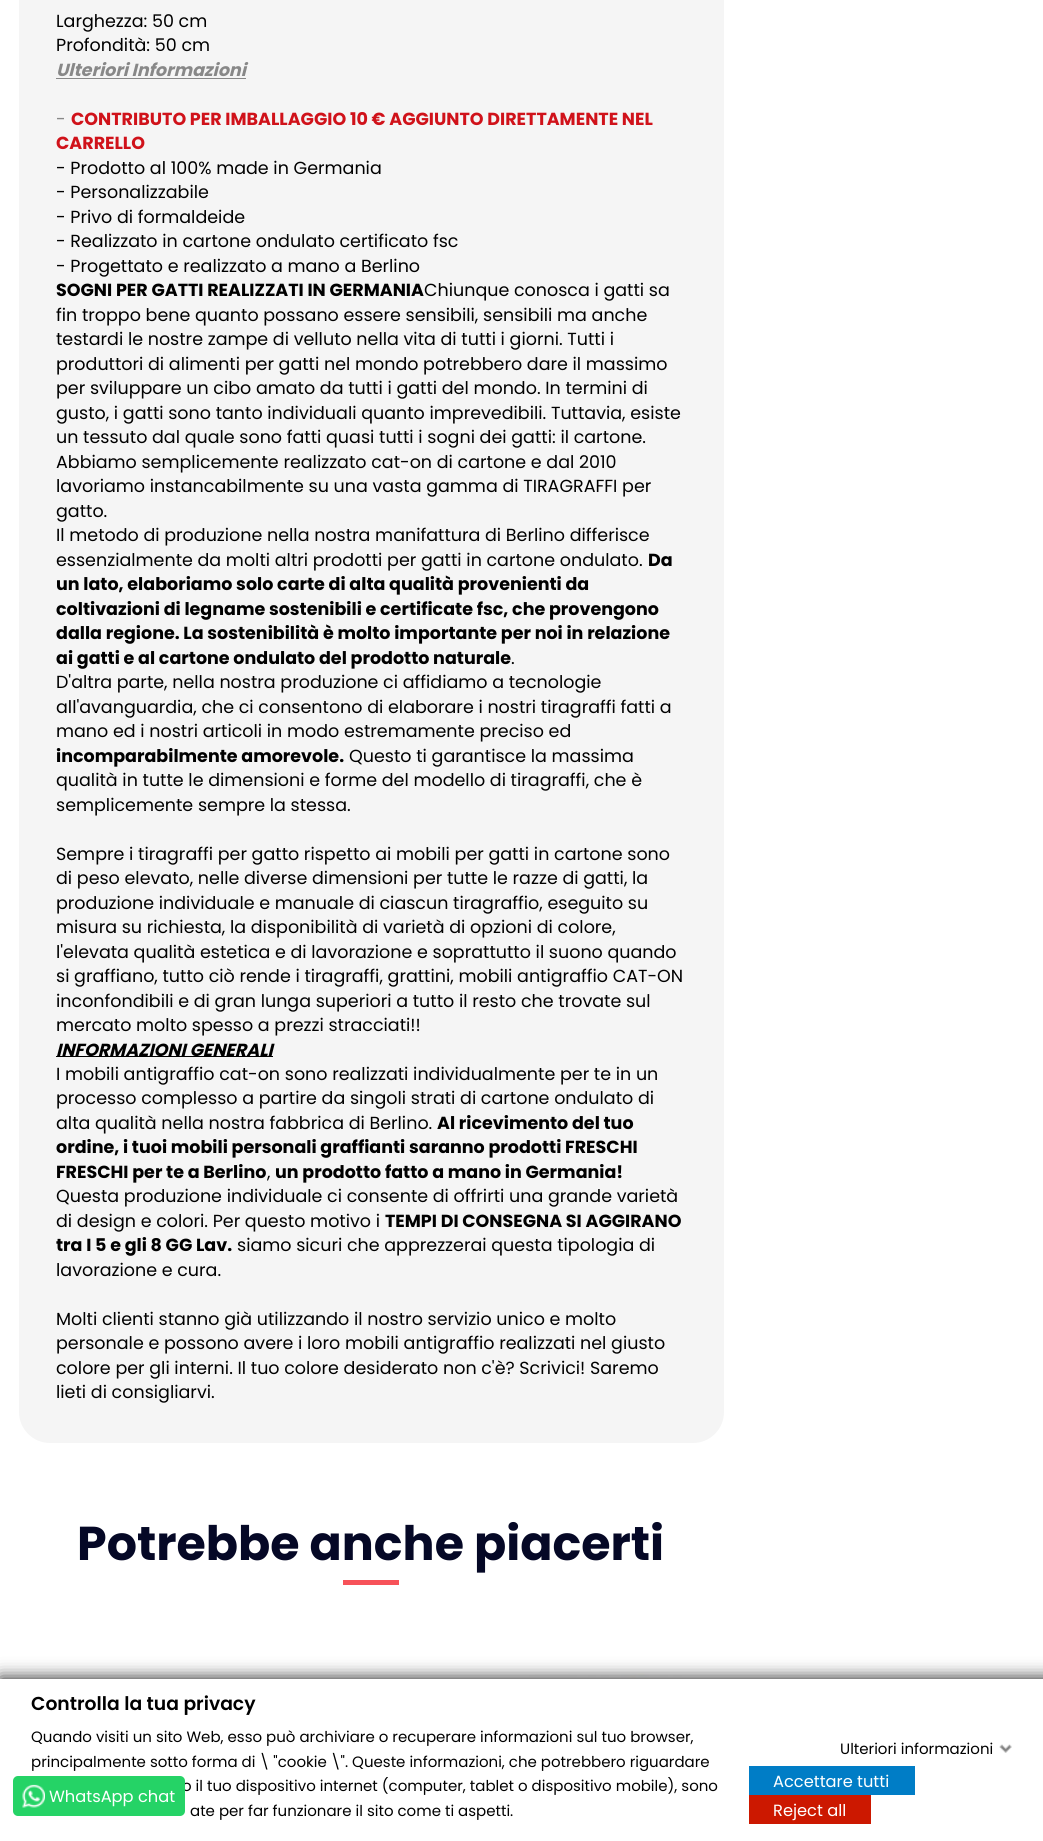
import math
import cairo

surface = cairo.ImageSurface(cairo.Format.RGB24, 1043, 1841)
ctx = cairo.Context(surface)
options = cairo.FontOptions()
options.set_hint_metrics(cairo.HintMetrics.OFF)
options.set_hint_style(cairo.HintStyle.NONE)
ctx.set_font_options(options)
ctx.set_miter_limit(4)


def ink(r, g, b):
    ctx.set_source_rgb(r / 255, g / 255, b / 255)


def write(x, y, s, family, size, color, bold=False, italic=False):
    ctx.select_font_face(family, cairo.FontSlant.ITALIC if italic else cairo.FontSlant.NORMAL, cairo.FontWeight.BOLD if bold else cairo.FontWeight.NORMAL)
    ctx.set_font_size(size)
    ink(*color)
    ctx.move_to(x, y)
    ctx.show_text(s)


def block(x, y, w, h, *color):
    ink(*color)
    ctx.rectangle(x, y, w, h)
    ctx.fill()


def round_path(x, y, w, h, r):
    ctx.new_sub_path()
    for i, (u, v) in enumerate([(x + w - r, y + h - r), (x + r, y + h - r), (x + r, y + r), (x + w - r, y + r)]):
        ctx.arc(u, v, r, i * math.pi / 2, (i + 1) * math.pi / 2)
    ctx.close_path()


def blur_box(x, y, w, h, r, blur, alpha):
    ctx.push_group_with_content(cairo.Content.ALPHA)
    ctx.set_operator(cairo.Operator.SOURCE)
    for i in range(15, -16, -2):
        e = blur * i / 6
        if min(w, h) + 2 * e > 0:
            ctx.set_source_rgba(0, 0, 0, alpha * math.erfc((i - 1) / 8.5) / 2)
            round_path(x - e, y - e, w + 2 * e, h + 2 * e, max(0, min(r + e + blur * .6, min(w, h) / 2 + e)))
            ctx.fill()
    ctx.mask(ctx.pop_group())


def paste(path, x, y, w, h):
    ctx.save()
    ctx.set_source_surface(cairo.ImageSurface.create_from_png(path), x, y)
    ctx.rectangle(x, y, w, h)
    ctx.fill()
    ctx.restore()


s1 = dict(family="Poppins", size=17.5, color=(0, 0, 0))
s2 = dict(family="Poppins", size=17.5, color=(136, 136, 136), bold=True, italic=True)
s3 = dict(family="Poppins", size=17.5, color=(136, 136, 136))
s4 = dict(family="Poppins", size=17.5, color=(208, 18, 26), bold=True)
s5 = dict(family="Poppins", size=17.5, color=(0, 0, 0), bold=True)
s6 = dict(family="Poppins", size=17.5, color=(0, 0, 0), bold=True, italic=True)
s7 = dict(family="Poppins", size=47.5, color=(5, 8, 38), bold=True)
s8 = dict(family="Poppins SemiBold", size=18.75, color=(0, 0, 0))
s9 = dict(family="Poppins", size=15, color=(0, 0, 0))
s10 = dict(family="Poppins", size=16.25, color=(255, 255, 255))

ink(255, 255, 255)
ctx.paint()
ink(245, 245, 245)
round_path(19, -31, 705, 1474, 31)
ctx.fill()
write(56, 27, "Larghezza: 50 cm", **s1)
write(56, 51, "Profondità: 50 cm", **s1)
write(56, 76, "Ulteriori Informazioni", **s2)
block(56, 78, 190, 1, 136, 136, 136)
write(56, 125, "-", **s3)
write(71, 125, "CONTRIBUTO PER IMBALLAGGIO 10 € AGGIUNTO DIRETTAMENTE NEL", **s4)
write(56, 149, "CARRELLO", **s4)
write(56, 174, "- Prodotto al 100% made in Germania", **s1)
write(56, 198, "- Personalizzabile", **s1)
write(56, 223, "- Privo di formaldeide", **s1)
write(56, 247, "- Realizzato in cartone ondulato certificato fsc", **s1)
write(56, 272, "- Progettato e realizzato a mano a Berlino", **s1)
write(56, 296, "SOGNI PER GATTI REALIZZATI IN GERMANIA", **s5)
write(424, 296, "Chiunque conosca i gatti sa", **s1)
write(56, 321, "fin troppo bene quanto possano essere sensibili, sensibili ma anche", **s1)
write(56, 345, "testardi le nostre zampe di velluto nella vita di tutti i giorni. Tutti i", **s1)
write(56, 370, "produttori di alimenti per gatti nel mondo potrebbero dare il massimo", **s1)
write(56, 394, "per sviluppare un cibo amato da tutti i gatti del mondo. In termini di", **s1)
write(56, 419, "gusto, i gatti sono tanto individuali quanto imprevedibili. Tuttavia, esiste", **s1)
write(56, 443, "un tessuto dal quale sono fatti quasi tutti i sogni dei gatti: il cartone.", **s1)
write(56, 468, "Abbiamo semplicemente realizzato cat-on di cartone e dal 2010", **s1)
write(56, 492, "lavoriamo instancabilmente su una vasta gamma di TIRAGRAFFI per", **s1)
write(56, 517, "gatto.", **s1)
write(56, 541, "Il metodo di produzione nella nostra manifattura di Berlino differisce", **s1)
write(56, 566, "essenzialmente da molti altri prodotti per gatti in cartone ondulato.", **s1)
write(648, 566, "Da", **s5)
write(56, 590, "un lato, elaboriamo solo carte di alta qualità provenienti da", **s5)
write(56, 615, "coltivazioni di legname sostenibili e certificate fsc, che provengono", **s5)
write(56, 639, "dalla regione. La sostenibilità è molto importante per noi in relazione", **s5)
write(56, 664, "ai gatti e al cartone ondulato del prodotto naturale", **s5)
write(511, 664, ".", **s1)
write(56, 688, "D'altra parte, nella nostra produzione ci affidiamo a tecnologie", **s1)
write(56, 713, "all'avanguardia, che ci consentono di elaborare i nostri tiragraffi fatti a", **s1)
write(56, 737, "mano ed i nostri articoli in modo estremamente preciso ed", **s1)
write(56, 762, "incomparabilmente amorevole.", **s5)
write(349, 762, "Questo ti garantisce la massima", **s1)
write(56, 786, "qualità in tutte le dimensioni e forme del modello di tiragraffi, che è", **s1)
write(56, 811, "semplicemente sempre la stessa.", **s1)
write(56, 860, "Sempre i tiragraffi per gatto rispetto ai mobili per gatti in cartone sono", **s1)
write(56, 884, "di peso elevato, nelle diverse dimensioni per tutte le razze di gatti, la", **s1)
write(56, 909, "produzione individuale e manuale di ciascun tiragraffio, eseguito su", **s1)
write(56, 933, "misura su richiesta, la disponibilità di varietà di opzioni di colore,", **s1)
write(56, 958, "l'elevata qualità estetica e di lavorazione e soprattutto il suono quando", **s1)
write(56, 982, "si graffiano, tutto ciò rende i tiragraffi, grattini, mobili antigraffio CAT-ON", **s1)
write(56, 1007, "inconfondibili e di gran lunga superiori a tutto il resto che trovate sul", **s1)
write(56, 1031, "mercato molto spesso a prezzi stracciati!!", **s1)
block(56, 1056, 217, 1, 0, 0, 0)
write(56, 1056, "INFORMAZIONI GENERALI", **s6)
write(56, 1080, "I mobili antigraffio cat-on sono realizzati individualmente per te in un", **s1)
write(56, 1104, "processo complesso a partire da singoli strati di cartone ondulato di", **s1)
write(56, 1129, "alta qualità nella nostra fabbrica di Berlino.", **s1)
write(437, 1129, "Al ricevimento del tuo", **s5)
write(56, 1153, "ordine, i tuoi mobili personali graffianti saranno prodotti FRESCHI", **s5)
write(56, 1178, "FRESCHI per te a Berlino", **s5)
write(267, 1178, ",", **s1)
write(275, 1178, "un prodotto fatto a mano in Germania!", **s5)
write(56, 1202, "Questa produzione individuale ci consente di offrirti una grande varietà", **s1)
write(56, 1227, "di design e colori. Per questo motivo i", **s1)
write(385, 1227, "TEMPI DI CONSEGNA SI AGGIRANO", **s5)
write(56, 1251, "tra I 5 e gli 8 GG Lav.", **s5)
write(237, 1251, "siamo sicuri che apprezzerai questa tipologia di", **s1)
write(56, 1276, "lavorazione e cura.", **s1)
write(56, 1325, "Molti clienti stanno già utilizzando il nostro servizio unico e molto", **s1)
write(56, 1349, "personale e possono avere i loro mobili antigraffio realizzati nel giusto", **s1)
write(56, 1374, "colore per gli interni. Il tuo colore desiderato non c'è? Scrivici! Saremo", **s1)
write(56, 1398, "lieti di consigliarvi.", **s1)
write(77, 1560, "Potrebbe anche piacerti", **s7)
block(343, 1580, 56, 5, 247, 82, 89)
paste("pic1.png", 529, 1673, 164, 6)
ink(18, 18, 18)
blur_box(0, 1679, 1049, 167, 0, 9, 1)
block(0, 1679, 1043, 162, 255, 255, 255)
write(31, 1710, "Controlla la tua privacy", **s8)
write(31, 1742, "Quando visiti un sito Web, esso può archiviare o recuperare informazioni sul tuo browser,", **s9)
write(31, 1767, "principalmente sotto forma di \\ \"cookie \\\". Queste informazioni, che potrebbero riguardare", **s9)
write(182, 1791, "o il tuo dispositivo internet (computer, tablet o dispositivo mobile), sono", **s9)
write(190, 1816, "ate per far funzionare il sito come ti aspetti.", **s9)
write(840, 1754, "Ulteriori informazioni", **s9)
paste("pic2.png", 999, 1744, 13, 9)
block(749, 1766, 166, 29, 0, 125, 198)
write(773, 1787, "Accettare tutti", **s10)
block(749, 1795, 122, 29, 204, 24, 0)
write(773, 1816, "Reject all", **s10)
ink(37, 211, 102)
round_path(13, 1776, 172, 40, 5)
ctx.fill()
paste("pic3.png", 22, 1784, 23, 24)
write(49, 1802, "WhatsApp chat", **s10)
surface.write_to_png("screenshot.png")
